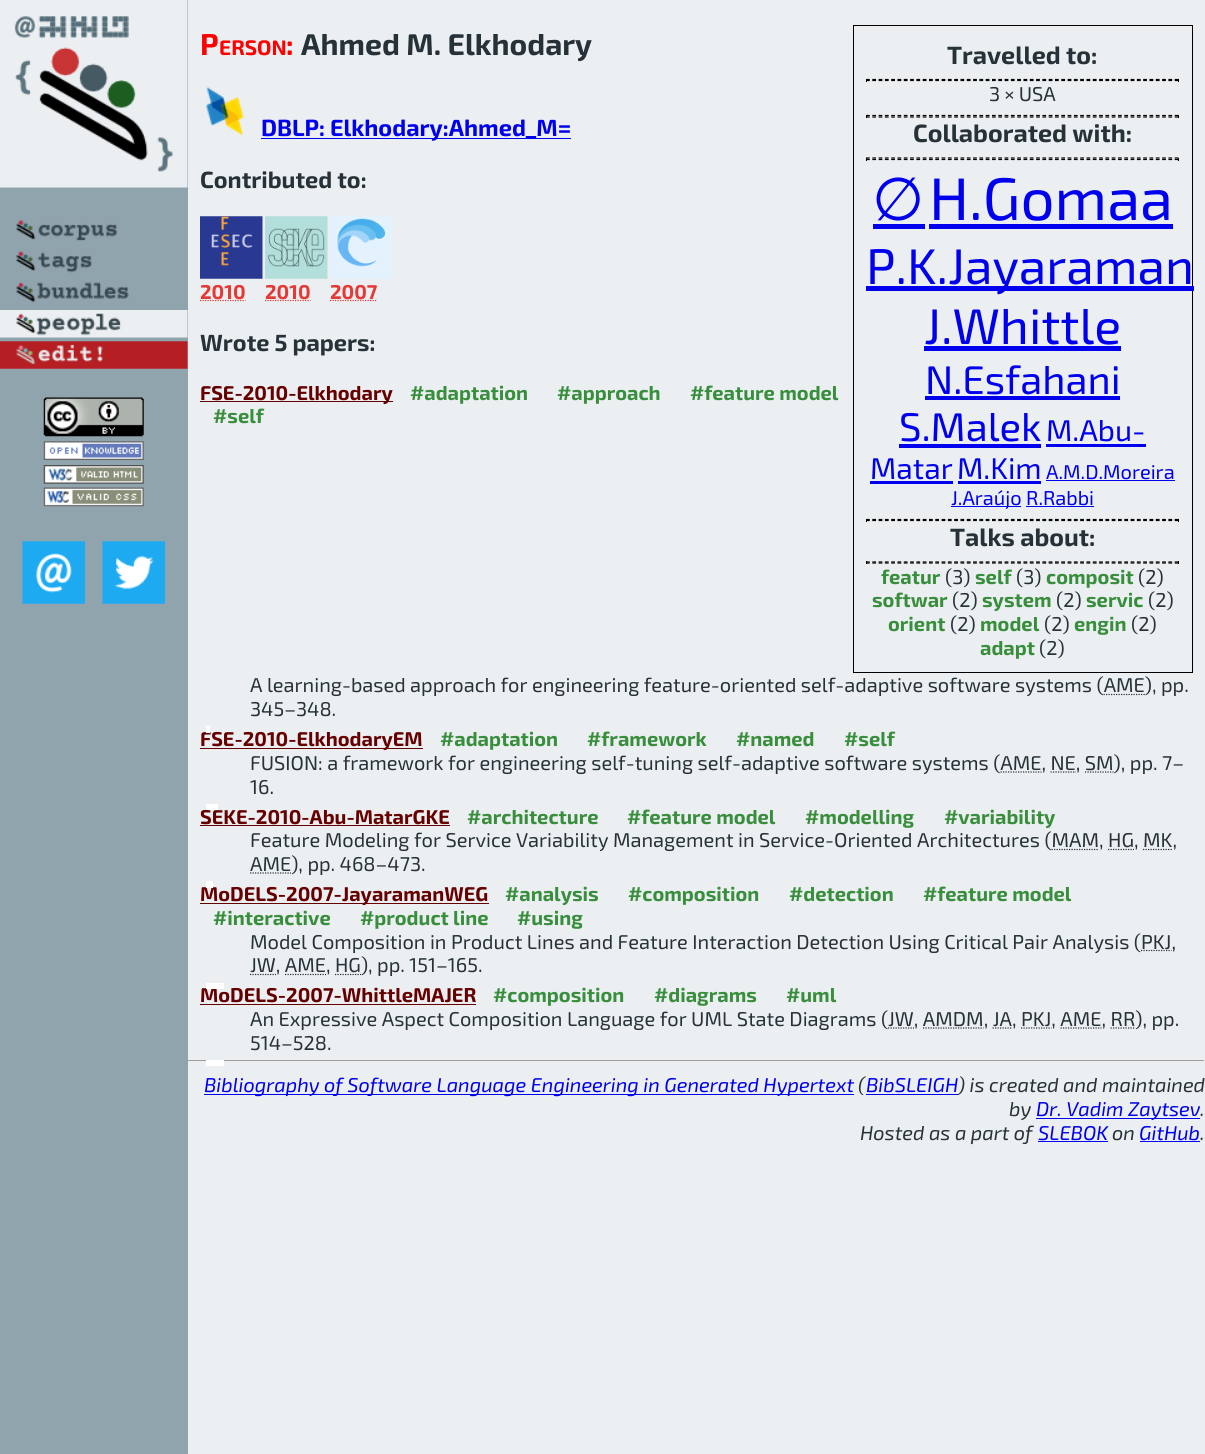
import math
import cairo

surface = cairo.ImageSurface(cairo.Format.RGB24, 1205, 1454)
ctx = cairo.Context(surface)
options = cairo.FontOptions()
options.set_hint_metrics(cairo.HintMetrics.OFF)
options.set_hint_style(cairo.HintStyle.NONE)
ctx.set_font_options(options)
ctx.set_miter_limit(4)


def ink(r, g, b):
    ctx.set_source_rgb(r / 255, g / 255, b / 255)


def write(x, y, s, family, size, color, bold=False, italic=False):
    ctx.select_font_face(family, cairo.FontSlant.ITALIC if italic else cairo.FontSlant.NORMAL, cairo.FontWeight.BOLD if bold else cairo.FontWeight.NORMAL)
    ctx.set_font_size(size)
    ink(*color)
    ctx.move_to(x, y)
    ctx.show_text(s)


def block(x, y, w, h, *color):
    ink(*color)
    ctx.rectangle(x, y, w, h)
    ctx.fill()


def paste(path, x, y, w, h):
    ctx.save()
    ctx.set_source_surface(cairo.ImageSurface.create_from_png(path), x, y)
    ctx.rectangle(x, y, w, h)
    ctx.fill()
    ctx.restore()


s1 = dict(family="Exo 2", size=30, color=(255, 0, 0), bold=True)
s2 = dict(family="Exo 2", size=21, color=(255, 0, 0), bold=True)
s3 = dict(family="Exo 2", size=30, color=(38, 50, 56), bold=True)
s4 = dict(family="Exo 2", size=25, color=(38, 50, 56), bold=True)
s5 = dict(family="Exo 2", size=20, color=(38, 50, 56))
s6 = dict(family="DejaVu Sans", size=60, color=(0, 0, 238))
s7 = dict(family="Exo 2", size=60, color=(0, 0, 238))
s8 = dict(family="Exo 2", size=50, color=(0, 0, 238))
s9 = dict(family="Exo 2", size=40, color=(0, 0, 238))
s10 = dict(family="Exo 2", size=30, color=(0, 0, 238))
s11 = dict(family="Exo 2", size=20, color=(0, 0, 238))
s12 = dict(family="Exo 2", size=20, color=(56, 142, 60), bold=True)
s13 = dict(family="Exo 2", size=23.4, color=(0, 0, 238), bold=True)
s14 = dict(family="Exo 2", size=23.4, color=(38, 50, 56), bold=True)
s15 = dict(family="Exo 2", size=20, color=(229, 57, 53), bold=True)
s16 = dict(family="Exo 2", size=20, color=(102, 0, 0), bold=True)
s17 = dict(family="Exo 2", size=20, color=(0, 0, 238), italic=True)
s18 = dict(family="Exo 2", size=20, color=(38, 50, 56), italic=True)

ink(236, 239, 241)
ctx.paint()
block(0, 0, 188, 1454, 144, 164, 174)
paste("pic1.png", 0, 0, 188, 188)
paste("pic2.png", 16, 219, 102, 22)
paste("pic3.png", 16, 251, 76, 22)
paste("pic4.png", 16, 282, 113, 21)
paste("pic5.png", 0, 310, 188, 28)
paste("pic6.png", 0, 341, 188, 28)
paste("pic7.png", 43, 397, 101, 40)
paste("pic8.png", 43, 441, 101, 19)
paste("pic9.png", 43, 465, 101, 19)
paste("pic10.png", 43, 487, 101, 20)
paste("pic11.png", 22, 541, 63, 63)
paste("pic12.png", 102, 541, 63, 63)
write(200, 55, "P", **s1)
write(219, 55, "ERSON", **s2)
write(286, 55, ":", **s1)
write(301, 55, "Ahmed M. Elkhodary", **s3)
ctx.rectangle(853.5, 25.5, 339, 647)
ink(0, 0, 0)
ctx.set_line_width(1)
ctx.stroke()
write(947, 64, "Travelled to:", **s4)
ctx.new_path()
ctx.move_to(866, 79.5)
ctx.line_to(1179, 79.5)
ink(0, 0, 0)
ctx.set_line_width(1.2)
ctx.set_dash([3.75, 2.55])
ctx.stroke()
block(1178, 79, 1, 3, 0, 0, 0)
ctx.new_path()
ctx.move_to(866, 80.5)
ctx.line_to(1179, 80.5)
ctx.stroke()
block(866, 79, 1, 3, 0, 0, 0)
write(989, 101, "3 × USA", **s5)
ctx.new_path()
ctx.move_to(866, 115.5)
ctx.line_to(1179, 115.5)
ink(0, 0, 0)
ctx.stroke()
block(1178, 115, 1, 3, 0, 0, 0)
ctx.new_path()
ctx.move_to(866, 117)
ctx.line_to(1179, 117)
ctx.stroke()
block(866, 115, 1, 3, 0, 0, 0)
write(913, 142, "Collaborated with:", **s4)
ctx.new_path()
ctx.move_to(866, 158)
ctx.line_to(1179, 158)
ink(0, 0, 0)
ctx.stroke()
block(1178, 158, 1, 3, 0, 0, 0)
ctx.new_path()
ctx.move_to(866, 159.5)
ctx.line_to(1179, 159.5)
ctx.stroke()
block(866, 158, 1, 3, 0, 0, 0)
write(872, 220, "∅", **s6)
block(873, 224, 52, 5, 0, 0, 238)
write(929, 220, "H.Gomaa", **s7)
block(929, 224, 244, 5, 0, 0, 238)
block(866, 286, 328, 5, 0, 0, 238)
write(866, 284, "P.K.Jayaraman", **s8)
write(924, 344, "J.Whittle", **s8)
block(924, 346, 197, 5, 0, 0, 238)
write(925, 394, "N.Esfahani", **s9)
block(925, 396, 195, 4, 0, 0, 238)
write(899, 441, "S.Malek", **s9)
block(899, 444, 142, 4, 0, 0, 238)
write(1046, 441, "M.Abu-", **s10)
block(1046, 444, 100, 3, 0, 0, 238)
write(870, 479, "Matar", **s10)
block(870, 481, 83, 3, 0, 0, 238)
write(957, 479, "M.Kim", **s10)
block(958, 481, 83, 3, 0, 0, 238)
write(1046, 479, "A.M.D.Moreira", **s11)
block(1046, 480, 129, 1, 0, 0, 238)
block(951, 506, 70, 1, 0, 0, 238)
write(951, 505, "J.Araújo R.Rabbi", **s11)
block(1026, 506, 68, 1, 0, 0, 238)
ctx.new_path()
ctx.move_to(866, 519.5)
ctx.line_to(1179, 519.5)
ink(0, 0, 0)
ctx.stroke()
block(1178, 519, 1, 3, 0, 0, 0)
ctx.new_path()
ctx.move_to(866, 520.5)
ctx.line_to(1179, 520.5)
ctx.stroke()
block(866, 519, 1, 3, 0, 0, 0)
write(950, 546, "Talks about:", **s4)
ctx.new_path()
ctx.move_to(866, 562)
ctx.line_to(1179, 562)
ink(0, 0, 0)
ctx.stroke()
block(1178, 561, 1, 3, 0, 0, 0)
ctx.new_path()
ctx.move_to(866, 563)
ctx.line_to(1179, 563)
ctx.stroke()
block(866, 561, 1, 3, 0, 0, 0)
write(881, 584, "featur", **s12)
write(945, 584, "(3)", **s5)
write(975, 584, "self", **s12)
write(1016, 584, "(3)", **s5)
write(1046, 584, "composit", **s12)
write(1138, 584, "(2)", **s5)
write(872, 607, "softwar", **s12)
write(952, 607, "(2)", **s5)
write(982, 607, "system", **s12)
write(1056, 607, "(2)", **s5)
write(1086, 607, "servic", **s12)
write(1148, 607, "(2)", **s5)
write(888, 631, "orient", **s12)
write(950, 631, "(2)", **s5)
write(980, 631, "model", **s12)
write(1044, 631, "(2)", **s5)
write(1074, 631, "engin", **s12)
write(1131, 631, "(2)", **s5)
write(980, 655, "adapt", **s12)
write(1039, 655, "(2)", **s5)
paste("pic13.png", 206, 87, 38, 49)
block(261, 138, 310, 1, 0, 0, 238)
write(261, 136, "DBLP: Elkhodary:Ahmed_M=", **s13)
write(200, 188, "Contributed to:", **s14)
paste("pic14.png", 200, 216, 63, 63)
ctx.new_path()
ctx.move_to(200, 300.5)
ctx.line_to(245.5, 300.5)
ink(229, 57, 53)
ctx.set_dash([1.25, 1.25])
ctx.stroke()
write(200, 299, "2010", **s15)
paste("pic15.png", 265, 216, 63, 63)
ctx.new_path()
ctx.move_to(265, 300.5)
ctx.line_to(310.5, 300.5)
ctx.stroke()
write(265, 299, "2010", **s15)
paste("pic16.png", 330, 216, 63, 63)
ctx.new_path()
ctx.move_to(330, 300.5)
ctx.line_to(377.5, 300.5)
ctx.stroke()
write(330, 299, "2007", **s15)
write(200, 351, "Wrote 5 papers:", **s14)
block(200, 401, 193, 1, 102, 0, 0)
write(200, 400, "FSE-2010-Elkhodary", **s16)
write(410, 400, "#adaptation", **s12)
write(557, 400, "#approach", **s12)
write(690, 400, "#feature model", **s12)
write(213, 423, "#self", **s12)
write(250, 692, "A learning-based approach for engineering feature-oriented self-adaptive software systems (AME), pp.", **s5)
ctx.new_path()
ctx.move_to(1103.5, 694.5)
ctx.line_to(1145, 694.5)
ctx.stroke()
write(250, 716, "345–348.", **s5)
block(200, 748, 223, 1, 102, 0, 0)
write(200, 746, "FSE-2010-ElkhodaryEM", **s16)
block(206, 726, 4, 7, 255, 255, 255)
write(440, 746, "#adaptation", **s12)
write(587, 746, "#framework", **s12)
write(736, 746, "#named", **s12)
write(844, 746, "#self", **s12)
write(250, 770, "FUSION: a framework for engineering self-tuning self-adaptive software systems (AME, NE, SM), pp. 7–", **s5)
ctx.new_path()
ctx.move_to(1000.5, 772)
ctx.line_to(1041.5, 772)
ctx.stroke()
ctx.new_path()
ctx.move_to(1050.5, 772)
ctx.line_to(1076, 772)
ctx.stroke()
ctx.new_path()
ctx.move_to(1085, 772)
ctx.line_to(1113.5, 772)
ctx.stroke()
write(250, 794, "16.", **s5)
write(200, 824, "SEKE-2010-Abu-MatarGKE", **s16)
block(206, 804, 12, 6, 255, 255, 255)
block(200, 825, 250, 1, 102, 0, 0)
write(467, 824, "#architecture", **s12)
write(627, 824, "#feature model", **s12)
write(805, 824, "#modelling", **s12)
write(944, 824, "#variability", **s12)
write(250, 847, "Feature Modeling for Service Variability Management in Service-Oriented Architectures (MAM, HG, MK,", **s5)
ctx.new_path()
ctx.move_to(1051.5, 849.5)
ctx.line_to(1099, 849.5)
ctx.stroke()
ctx.new_path()
ctx.move_to(1108, 849.5)
ctx.line_to(1134, 849.5)
ctx.stroke()
ctx.new_path()
ctx.move_to(1143, 849.5)
ctx.line_to(1172.5, 849.5)
ctx.stroke()
ctx.new_path()
ctx.move_to(250, 873)
ctx.line_to(291, 873)
ctx.stroke()
write(250, 871, "AME), pp. 468–473.", **s5)
block(200, 903, 289, 1, 102, 0, 0)
write(200, 901, "MoDELS-2007-JayaramanWEG", **s16)
block(206, 881, 7, 7, 255, 255, 255)
write(505, 901, "#analysis", **s12)
write(628, 901, "#composition", **s12)
write(789, 901, "#detection", **s12)
write(923, 901, "#feature model", **s12)
write(213, 925, "#interactive", **s12)
write(360, 925, "#product line", **s12)
write(517, 925, "#using", **s12)
write(250, 949, "Model Composition in Product Lines and Feature Interaction Detection Using Critical Pair Analysis (", **s5)
ctx.new_path()
ctx.move_to(1141, 950.5)
ctx.line_to(1171.5, 950.5)
ctx.stroke()
write(1141, 949, "PKJ,", **s5)
ctx.new_path()
ctx.move_to(250, 974.5)
ctx.line_to(276, 974.5)
ctx.stroke()
write(250, 972, "JW, AME, HG), pp. 151–165.", **s5)
ctx.new_path()
ctx.move_to(285, 974.5)
ctx.line_to(326, 974.5)
ctx.stroke()
ctx.new_path()
ctx.move_to(335, 974.5)
ctx.line_to(361, 974.5)
ctx.stroke()
write(200, 1002, "MoDELS-2007-WhittleMAJER", **s16)
block(206, 983, 18, 6, 255, 255, 255)
block(200, 1004, 276, 1, 102, 0, 0)
write(493, 1002, "#composition", **s12)
write(654, 1002, "#diagrams", **s12)
write(786, 1002, "#uml", **s12)
write(250, 1026, "An Expressive Aspect Composition Language for UML State Diagrams (JW, AMDM, JA, PKJ, AME, RR), pp.", **s5)
ctx.new_path()
ctx.move_to(888, 1028)
ctx.line_to(914, 1028)
ctx.stroke()
ctx.new_path()
ctx.move_to(923, 1028)
ctx.line_to(983.5, 1028)
ctx.stroke()
ctx.new_path()
ctx.move_to(992.5, 1028)
ctx.line_to(1012, 1028)
ctx.move_to(1021, 1028)
ctx.line_to(1051.5, 1028)
ctx.stroke()
ctx.new_path()
ctx.move_to(1060.5, 1028)
ctx.line_to(1101.5, 1028)
ctx.stroke()
ctx.new_path()
ctx.move_to(1110.5, 1028)
ctx.line_to(1135.5, 1028)
ctx.stroke()
write(250, 1050, "514–528.", **s5)
block(188, 1060, 1017, 1, 159, 159, 159)
block(1204, 1060, 1, 3, 238, 238, 238)
block(188, 1061, 1017, 1, 238, 238, 238)
block(206, 1060, 18, 6, 255, 255, 255)
block(204, 1094, 650, 1, 0, 0, 238)
write(204, 1092, "Bibliography of Software Language Engineering in Generated Hypertext", **s17)
write(858, 1092, "(", **s18)
block(866, 1094, 92, 1, 0, 0, 238)
write(866, 1092, "BibSLEIGH", **s17)
write(958, 1092, ") is created and maintained", **s18)
write(1009, 1116, "by", **s18)
block(1036, 1118, 164, 1, 0, 0, 238)
write(1036, 1116, "Dr. Vadim Zaytsev", **s17)
write(1200, 1116, ".", **s18)
write(860, 1140, "Hosted as a part of", **s18)
block(1038, 1141, 70, 1, 0, 0, 238)
write(1038, 1140, "SLEBOK", **s17)
write(1112, 1140, "on", **s18)
write(1139, 1140, "GitHub", **s17)
write(1200, 1140, ".", **s18)
block(1140, 1141, 60, 1, 0, 0, 238)
surface.write_to_png("screenshot.png")
